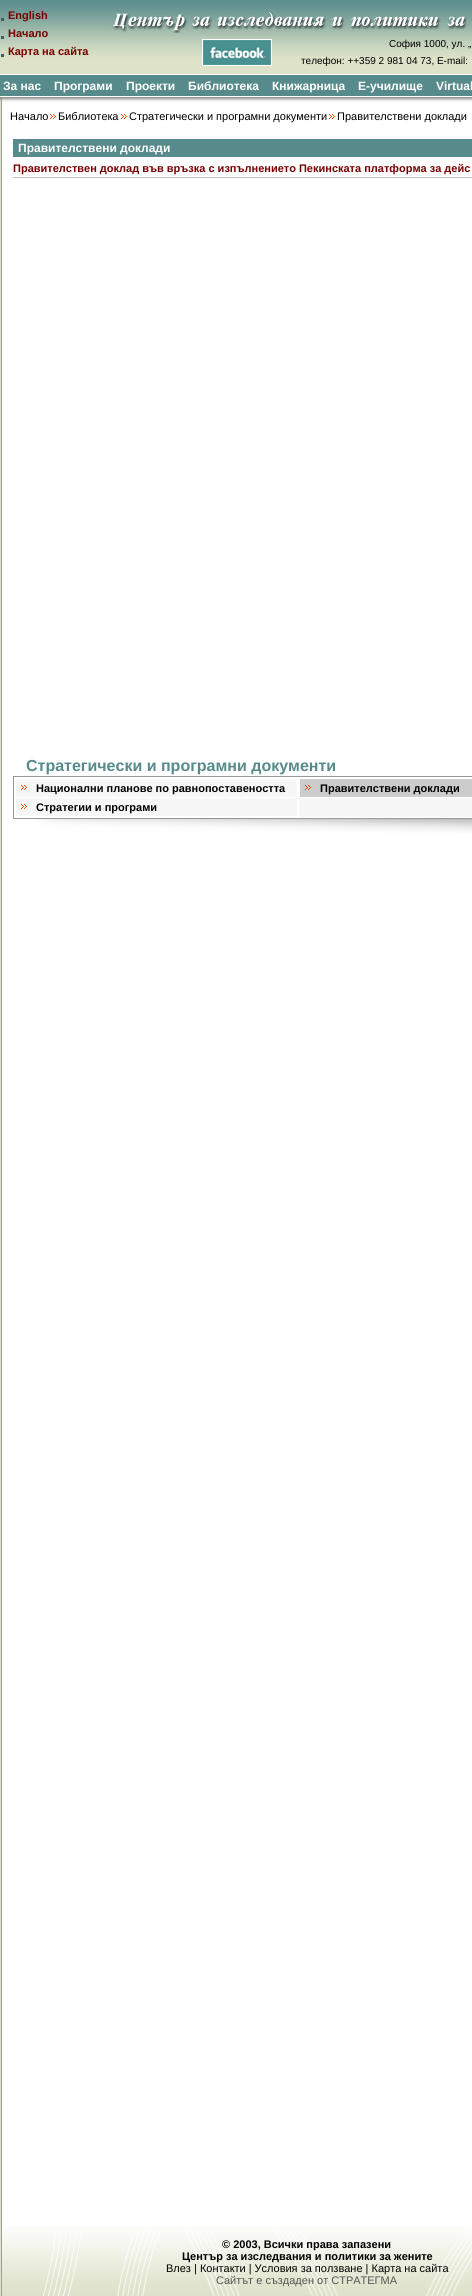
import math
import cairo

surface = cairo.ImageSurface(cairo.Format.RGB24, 472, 2296)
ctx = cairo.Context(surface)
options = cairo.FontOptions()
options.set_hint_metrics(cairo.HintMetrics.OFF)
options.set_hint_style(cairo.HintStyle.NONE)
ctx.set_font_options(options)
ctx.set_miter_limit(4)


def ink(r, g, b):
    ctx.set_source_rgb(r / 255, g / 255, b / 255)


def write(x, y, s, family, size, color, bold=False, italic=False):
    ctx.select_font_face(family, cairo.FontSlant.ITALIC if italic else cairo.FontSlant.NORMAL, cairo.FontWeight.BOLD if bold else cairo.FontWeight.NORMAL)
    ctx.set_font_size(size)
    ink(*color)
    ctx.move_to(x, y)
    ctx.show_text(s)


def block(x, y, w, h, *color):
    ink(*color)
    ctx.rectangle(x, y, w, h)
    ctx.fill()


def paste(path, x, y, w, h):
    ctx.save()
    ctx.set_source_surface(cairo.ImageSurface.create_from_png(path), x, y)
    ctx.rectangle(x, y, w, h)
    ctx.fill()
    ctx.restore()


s1 = dict(family="Liberation Sans", size=11, color=(120, 0, 0), bold=True)
s2 = dict(family="Liberation Sans", size=10, color=(0, 0, 0))
s3 = dict(family="Liberation Sans", size=12, color=(255, 255, 255), bold=True)
s4 = dict(family="Liberation Sans", size=11, color=(0, 0, 0))
s5 = dict(family="Liberation Sans", size=16, color=(87, 139, 139), bold=True)
s6 = dict(family="Liberation Sans", size=11, color=(0, 0, 0), bold=True)
s7 = dict(family="Liberation Sans", size=11, color=(84, 84, 84))

ink(255, 255, 255)
ctx.paint()
paste("pic1.png", 0, 0, 1, 96)
paste("pic2.png", 1, 0, 471, 96)
block(1, 18, 3, 3, 61, 96, 95)
write(8, 19, "English", **s1)
block(1, 36, 3, 3, 61, 96, 95)
write(8, 37, "Начало", **s1)
block(1, 54, 3, 3, 61, 96, 95)
write(8, 55, "Карта на сайта", **s1)
paste("pic3.png", 111, 8, 361, 25)
paste("pic4.png", 202, 39, 70, 27)
write(389, 47, "София 1000, ул. „", **s2)
write(301, 64, "телефон: ++359 2 981 04 73, E-mail:", **s2)
write(3, 90, "За нас", **s3)
write(54, 90, "Програми", **s3)
write(126, 90, "Проекти", **s3)
write(188, 90, "Библиотека", **s3)
write(272, 90, "Книжарница", **s3)
block(345, 89, 1, 4, 87, 139, 139)
write(358, 90, "Е-училище", **s3)
write(436, 90, "Virtual", **s3)
block(0, 97, 1, 2199, 221, 226, 200)
paste("pic5.png", 0, 97, 1, 5)
block(1, 97, 1, 2199, 158, 158, 158)
paste("pic6.png", 2, 97, 1, 5)
paste("pic7.png", 3, 97, 469, 5)
write(10, 120, "Начало", **s4)
paste("pic8.png", 50, 114, 6, 5)
write(58, 120, "Библиотека", **s4)
paste("pic8.png", 121, 114, 6, 5)
write(129, 120, "Стратегически и програмни документи", **s4)
paste("pic8.png", 329, 114, 6, 5)
write(337, 120, "Правителствени доклади", **s4)
block(13, 139, 459, 18, 87, 139, 139)
write(18, 152, "Правителствени доклади", **s3)
block(13, 177, 459, 1, 192, 192, 192)
write(13, 172, "Правителствен доклад във връзка с изпълнението Пекинската платформа за дейс", **s1)
write(26, 771, "Стратегически и програмни документи", **s5)
block(13, 776, 459, 43, 153, 153, 153)
block(14, 777, 458, 41, 255, 255, 255)
block(16, 779, 281, 18, 247, 247, 247)
paste("pic9.png", 21, 785, 6, 5)
write(36, 792, "Национални планове по равнопоставеността", **s6)
block(16, 798, 281, 18, 247, 247, 247)
paste("pic9.png", 21, 804, 6, 5)
write(36, 811, "Стратегии и програми", **s6)
block(299, 798, 173, 19, 247, 247, 247)
block(300, 779, 172, 18, 204, 204, 204)
paste("pic10.png", 305, 785, 6, 5)
write(320, 792, "Правителствени доклади", **s6)
paste("pic11.png", 35, 819, 437, 14)
paste("pic12.png", 2, 2226, 470, 70)
write(222, 2248, "© 2003, Всички права запазени", **s6)
write(182, 2260, "Център за изследвания и политики за жените", **s6)
write(166, 2272, "Влез | Контакти | Условия за ползване | Карта на сайта", **s4)
write(216, 2284, "Сайтът е създаден от СТРАТЕГМА", **s7)
surface.write_to_png("screenshot.png")
